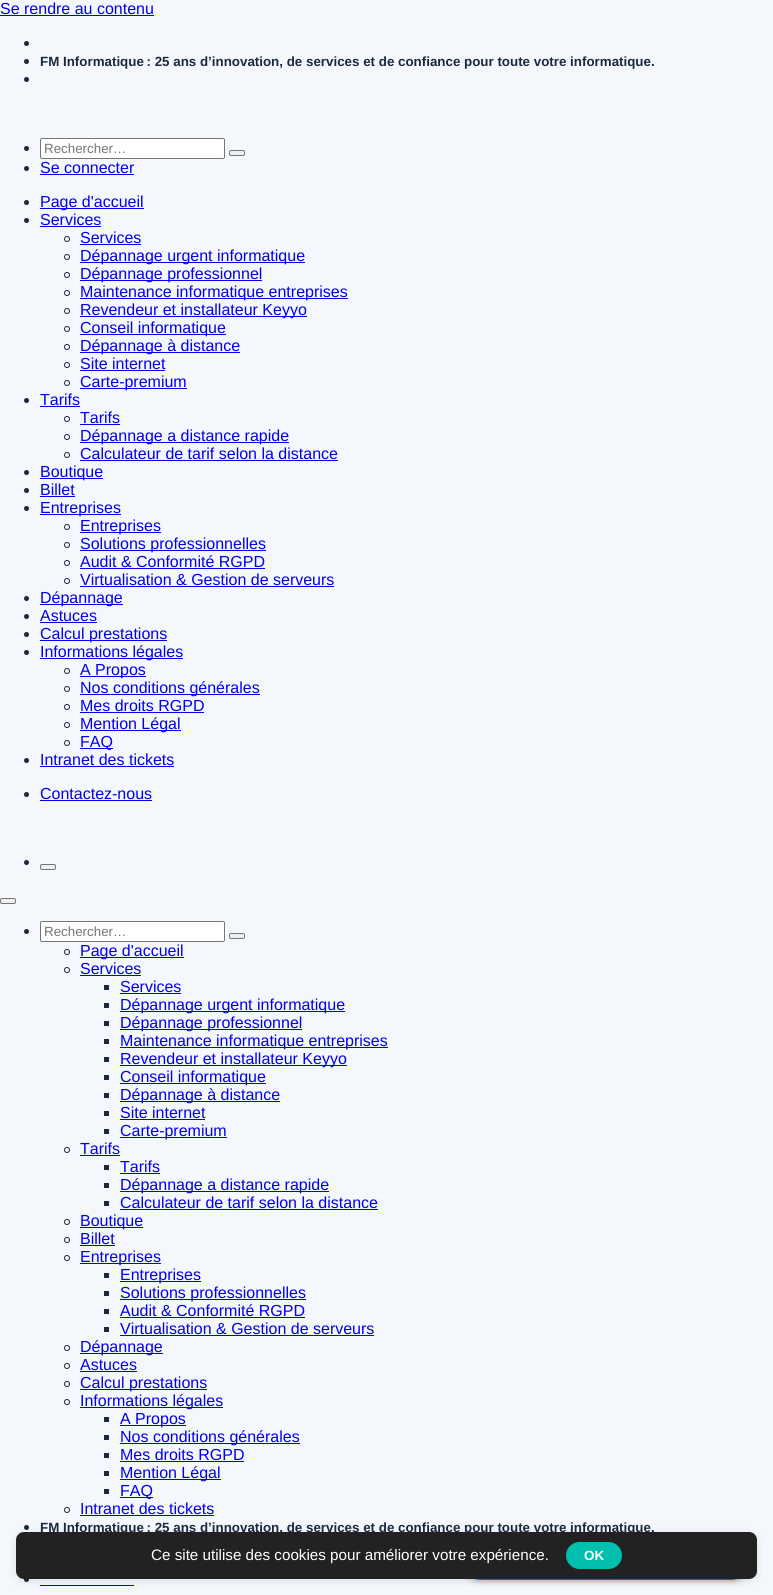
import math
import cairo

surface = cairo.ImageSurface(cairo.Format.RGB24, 773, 1595)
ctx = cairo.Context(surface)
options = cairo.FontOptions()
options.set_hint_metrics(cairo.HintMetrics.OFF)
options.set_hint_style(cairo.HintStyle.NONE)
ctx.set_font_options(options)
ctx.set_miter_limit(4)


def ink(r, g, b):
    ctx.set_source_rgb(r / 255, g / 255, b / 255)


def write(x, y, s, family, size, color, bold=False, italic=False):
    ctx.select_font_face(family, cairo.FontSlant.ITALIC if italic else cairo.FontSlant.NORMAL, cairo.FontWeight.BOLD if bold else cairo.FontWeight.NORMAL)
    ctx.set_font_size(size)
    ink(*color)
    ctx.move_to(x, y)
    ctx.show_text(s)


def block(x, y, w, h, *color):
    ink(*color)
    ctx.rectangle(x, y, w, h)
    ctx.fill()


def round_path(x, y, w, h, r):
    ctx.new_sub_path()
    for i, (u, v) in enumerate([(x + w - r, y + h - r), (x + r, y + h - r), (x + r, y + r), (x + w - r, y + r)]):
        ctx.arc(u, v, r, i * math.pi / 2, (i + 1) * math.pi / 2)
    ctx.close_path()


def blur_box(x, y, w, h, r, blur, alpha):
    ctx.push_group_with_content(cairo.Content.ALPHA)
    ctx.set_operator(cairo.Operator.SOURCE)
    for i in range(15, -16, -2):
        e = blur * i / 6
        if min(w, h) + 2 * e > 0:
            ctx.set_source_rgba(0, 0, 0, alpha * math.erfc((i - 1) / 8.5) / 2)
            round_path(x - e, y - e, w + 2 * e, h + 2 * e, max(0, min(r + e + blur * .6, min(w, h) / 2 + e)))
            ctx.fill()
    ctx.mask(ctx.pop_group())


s1 = dict(family="Liberation Sans", size=16, color=(0, 0, 238))
s2 = dict(family="Liberation Sans", size=13.35, color=(26, 41, 64), bold=True)
s3 = dict(family="Liberation Sans", size=13.35, color=(117, 117, 117))
s4 = dict(family="Liberation Sans", size=15.2, color=(255, 255, 255))
s5 = dict(family="Liberation Sans", size=13.35, color=(255, 255, 255), bold=True)

ink(244, 247, 251)
ctx.paint()
write(0, 14, "Se rendre au contenu", **s1)
block(0, 15, 154, 1, 0, 0, 238)
ink(26, 41, 64)
ctx.new_path()
ctx.arc(26.5, 43.5, 2.5, 0, 2 * math.pi)
ctx.fill()
ctx.arc(26.5, 61.5, 2.5, 0, 2 * math.pi)
ctx.fill()
write(40, 66, "FM Informatique : 25 ans d’innovation, de services et de confiance pour toute votre informatique.", **s2)
ctx.new_path()
ctx.arc(26.5, 79.5, 2.5, 0, 2 * math.pi)
ctx.fill()
ctx.arc(26.5, 148.5, 2.5, 0, 2 * math.pi)
ctx.fill()
ink(255, 255, 255)
round_path(40.5, 138.5, 184, 20, 1.5)
ctx.fill_preserve()
ink(118, 118, 118)
ctx.set_line_width(1)
ctx.stroke()
write(44, 153, "Rechercher…", **s3)
ink(239, 239, 239)
round_path(229.5, 150.5, 15, 5, 1.5)
ctx.fill_preserve()
ink(118, 118, 118)
ctx.stroke()
ink(26, 41, 64)
ctx.arc(26.5, 168.5, 2.5, 0, 2 * math.pi)
ctx.fill()
write(40, 173, "Se connecter", **s1)
block(40, 174, 94, 1, 0, 0, 238)
ink(26, 41, 64)
ctx.new_path()
ctx.arc(26.5, 202.5, 2.5, 0, 2 * math.pi)
ctx.fill()
block(40, 208, 104, 1, 0, 0, 238)
write(40, 207, "Page d'accueil", **s1)
ink(26, 41, 64)
ctx.new_path()
ctx.arc(26.5, 220.5, 2.5, 0, 2 * math.pi)
ctx.fill()
write(40, 225, "Services", **s1)
block(40, 226, 61, 1, 0, 0, 238)
ctx.new_path()
ctx.arc(67, 239, 2.5, 0, 2 * math.pi)
ink(26, 41, 64)
ctx.stroke()
write(80, 243, "Services", **s1)
block(80, 244, 61, 1, 0, 0, 238)
ctx.new_path()
ctx.arc(67, 257, 2.5, 0, 2 * math.pi)
ink(26, 41, 64)
ctx.stroke()
block(80, 262, 225, 1, 0, 0, 238)
write(80, 261, "Dépannage urgent informatique", **s1)
ctx.new_path()
ctx.arc(67, 275, 2.5, 0, 2 * math.pi)
ink(26, 41, 64)
ctx.stroke()
block(80, 280, 182, 1, 0, 0, 238)
write(80, 279, "Dépannage professionnel", **s1)
ctx.new_path()
ctx.arc(67, 293, 2.5, 0, 2 * math.pi)
ink(26, 41, 64)
ctx.stroke()
block(80, 298, 268, 1, 0, 0, 238)
write(80, 297, "Maintenance informatique entreprises", **s1)
ctx.new_path()
ctx.arc(67, 311, 2.5, 0, 2 * math.pi)
ink(26, 41, 64)
ctx.stroke()
block(80, 316, 227, 1, 0, 0, 238)
write(80, 315, "Revendeur et installateur Keyyo", **s1)
ctx.new_path()
ctx.arc(67, 329, 2.5, 0, 2 * math.pi)
ink(26, 41, 64)
ctx.stroke()
block(80, 334, 146, 1, 0, 0, 238)
write(80, 333, "Conseil informatique", **s1)
ctx.new_path()
ctx.arc(67, 347, 2.5, 0, 2 * math.pi)
ink(26, 41, 64)
ctx.stroke()
block(80, 352, 160, 1, 0, 0, 238)
write(80, 351, "Dépannage à distance", **s1)
ctx.new_path()
ctx.arc(67, 365, 2.5, 0, 2 * math.pi)
ink(26, 41, 64)
ctx.stroke()
write(80, 369, "Site internet", **s1)
block(80, 370, 85, 1, 0, 0, 238)
ctx.new_path()
ctx.arc(67, 383, 2.5, 0, 2 * math.pi)
ink(26, 41, 64)
ctx.stroke()
block(80, 388, 107, 1, 0, 0, 238)
write(80, 387, "Carte-premium", **s1)
ink(26, 41, 64)
ctx.new_path()
ctx.arc(26.5, 400.5, 2.5, 0, 2 * math.pi)
ctx.fill()
write(40, 405, "Tarifs", **s1)
block(40, 406, 40, 1, 0, 0, 238)
ctx.new_path()
ctx.arc(67, 419, 2.5, 0, 2 * math.pi)
ink(26, 41, 64)
ctx.stroke()
write(80, 423, "Tarifs", **s1)
block(80, 424, 40, 1, 0, 0, 238)
ctx.new_path()
ctx.arc(67, 437, 2.5, 0, 2 * math.pi)
ink(26, 41, 64)
ctx.stroke()
block(80, 442, 209, 1, 0, 0, 238)
write(80, 441, "Dépannage a distance rapide", **s1)
ctx.new_path()
ctx.arc(67, 455, 2.5, 0, 2 * math.pi)
ink(26, 41, 64)
ctx.stroke()
write(80, 459, "Calculateur de tarif selon la distance", **s1)
block(80, 460, 258, 1, 0, 0, 238)
ink(26, 41, 64)
ctx.new_path()
ctx.arc(26.5, 472.5, 2.5, 0, 2 * math.pi)
ctx.fill()
block(40, 478, 63, 1, 0, 0, 238)
write(40, 477, "Boutique", **s1)
ink(26, 41, 64)
ctx.new_path()
ctx.arc(26.5, 490.5, 2.5, 0, 2 * math.pi)
ctx.fill()
write(40, 495, "Billet", **s1)
block(40, 496, 35, 1, 0, 0, 238)
ink(26, 41, 64)
ctx.new_path()
ctx.arc(26.5, 508.5, 2.5, 0, 2 * math.pi)
ctx.fill()
block(40, 514, 81, 1, 0, 0, 238)
write(40, 513, "Entreprises", **s1)
ctx.new_path()
ctx.arc(67, 527, 2.5, 0, 2 * math.pi)
ink(26, 41, 64)
ctx.stroke()
block(80, 532, 81, 1, 0, 0, 238)
write(80, 531, "Entreprises", **s1)
ctx.new_path()
ctx.arc(67, 545, 2.5, 0, 2 * math.pi)
ink(26, 41, 64)
ctx.stroke()
block(80, 550, 186, 1, 0, 0, 238)
write(80, 549, "Solutions professionnelles", **s1)
ctx.new_path()
ctx.arc(67, 563, 2.5, 0, 2 * math.pi)
ink(26, 41, 64)
ctx.stroke()
write(80, 567, "Audit & Conformité RGPD", **s1)
block(80, 568, 185, 1, 0, 0, 238)
ctx.new_path()
ctx.arc(67, 581, 2.5, 0, 2 * math.pi)
ink(26, 41, 64)
ctx.stroke()
write(80, 585, "Virtualisation & Gestion de serveurs", **s1)
block(80, 586, 254, 1, 0, 0, 238)
ink(26, 41, 64)
ctx.new_path()
ctx.arc(26.5, 598.5, 2.5, 0, 2 * math.pi)
ctx.fill()
block(40, 604, 83, 1, 0, 0, 238)
write(40, 603, "Dépannage", **s1)
ink(26, 41, 64)
ctx.new_path()
ctx.arc(26.5, 616.5, 2.5, 0, 2 * math.pi)
ctx.fill()
write(40, 621, "Astuces", **s1)
block(40, 622, 57, 1, 0, 0, 238)
ink(26, 41, 64)
ctx.new_path()
ctx.arc(26.5, 634.5, 2.5, 0, 2 * math.pi)
ctx.fill()
block(40, 640, 127, 1, 0, 0, 238)
write(40, 639, "Calcul prestations", **s1)
ink(26, 41, 64)
ctx.new_path()
ctx.arc(26.5, 652.5, 2.5, 0, 2 * math.pi)
ctx.fill()
block(40, 658, 143, 1, 0, 0, 238)
write(40, 657, "Informations légales", **s1)
ctx.new_path()
ctx.arc(67, 671, 2.5, 0, 2 * math.pi)
ink(26, 41, 64)
ctx.stroke()
block(80, 676, 66, 1, 0, 0, 238)
write(80, 675, "A Propos", **s1)
ctx.new_path()
ctx.arc(67, 689, 2.5, 0, 2 * math.pi)
ink(26, 41, 64)
ctx.stroke()
block(80, 694, 180, 1, 0, 0, 238)
write(80, 693, "Nos conditions générales", **s1)
ctx.new_path()
ctx.arc(67, 707, 2.5, 0, 2 * math.pi)
ink(26, 41, 64)
ctx.stroke()
write(80, 711, "Mes droits RGPD", **s1)
block(80, 712, 124, 1, 0, 0, 238)
ctx.new_path()
ctx.arc(67, 725, 2.5, 0, 2 * math.pi)
ink(26, 41, 64)
ctx.stroke()
block(80, 730, 101, 1, 0, 0, 238)
write(80, 729, "Mention Légal", **s1)
ctx.new_path()
ctx.arc(67, 743, 2.5, 0, 2 * math.pi)
ink(26, 41, 64)
ctx.stroke()
block(80, 748, 33, 1, 0, 0, 238)
write(80, 747, "FAQ", **s1)
ink(26, 41, 64)
ctx.new_path()
ctx.arc(26.5, 760.5, 2.5, 0, 2 * math.pi)
ctx.fill()
write(40, 765, "Intranet des tickets", **s1)
block(40, 766, 134, 1, 0, 0, 238)
ink(26, 41, 64)
ctx.new_path()
ctx.arc(26.5, 794.5, 2.5, 0, 2 * math.pi)
ctx.fill()
write(40, 799, "Contactez-nous", **s1)
block(40, 800, 112, 1, 0, 0, 238)
ink(26, 41, 64)
ctx.new_path()
ctx.arc(26.5, 862.5, 2.5, 0, 2 * math.pi)
ctx.fill()
ink(239, 239, 239)
round_path(40.5, 864.5, 15, 5, 1.5)
ctx.fill_preserve()
ink(118, 118, 118)
ctx.stroke()
ink(239, 239, 239)
round_path(0.5, 898.5, 15, 5, 1.5)
ctx.fill_preserve()
ink(118, 118, 118)
ctx.stroke()
ink(26, 41, 64)
ctx.arc(26.5, 931.5, 2.5, 0, 2 * math.pi)
ctx.fill()
ink(255, 255, 255)
round_path(40.5, 921.5, 184, 20, 1.5)
ctx.fill_preserve()
ink(118, 118, 118)
ctx.stroke()
write(44, 936, "Rechercher…", **s3)
ink(239, 239, 239)
round_path(229.5, 933.5, 15, 5, 1.5)
ctx.fill_preserve()
ink(118, 118, 118)
ctx.stroke()
ctx.arc(67, 952, 2.5, 0, 2 * math.pi)
ink(26, 41, 64)
ctx.stroke()
block(80, 957, 104, 1, 0, 0, 238)
write(80, 956, "Page d'accueil", **s1)
ctx.new_path()
ctx.arc(67, 970, 2.5, 0, 2 * math.pi)
ink(26, 41, 64)
ctx.stroke()
write(80, 974, "Services", **s1)
block(80, 975, 61, 1, 0, 0, 238)
block(104, 985, 5, 5, 26, 41, 64)
write(120, 992, "Services", **s1)
block(120, 993, 61, 1, 0, 0, 238)
block(104, 1003, 5, 5, 26, 41, 64)
block(120, 1011, 225, 1, 0, 0, 238)
write(120, 1010, "Dépannage urgent informatique", **s1)
block(104, 1021, 5, 5, 26, 41, 64)
block(120, 1029, 182, 1, 0, 0, 238)
write(120, 1028, "Dépannage professionnel", **s1)
block(104, 1039, 5, 5, 26, 41, 64)
block(120, 1047, 268, 1, 0, 0, 238)
write(120, 1046, "Maintenance informatique entreprises", **s1)
block(104, 1057, 5, 5, 26, 41, 64)
block(120, 1065, 227, 1, 0, 0, 238)
write(120, 1064, "Revendeur et installateur Keyyo", **s1)
block(104, 1075, 5, 5, 26, 41, 64)
block(120, 1083, 146, 1, 0, 0, 238)
write(120, 1082, "Conseil informatique", **s1)
block(104, 1093, 5, 5, 26, 41, 64)
block(120, 1101, 160, 1, 0, 0, 238)
write(120, 1100, "Dépannage à distance", **s1)
block(104, 1111, 5, 5, 26, 41, 64)
write(120, 1118, "Site internet", **s1)
block(120, 1119, 85, 1, 0, 0, 238)
block(104, 1129, 5, 5, 26, 41, 64)
block(120, 1137, 107, 1, 0, 0, 238)
write(120, 1136, "Carte-premium", **s1)
ctx.new_path()
ctx.arc(67, 1150, 2.5, 0, 2 * math.pi)
ink(26, 41, 64)
ctx.stroke()
write(80, 1154, "Tarifs", **s1)
block(80, 1155, 40, 1, 0, 0, 238)
block(104, 1165, 5, 5, 26, 41, 64)
write(120, 1172, "Tarifs", **s1)
block(120, 1173, 40, 1, 0, 0, 238)
block(104, 1183, 5, 5, 26, 41, 64)
block(120, 1191, 209, 1, 0, 0, 238)
write(120, 1190, "Dépannage a distance rapide", **s1)
block(104, 1201, 5, 5, 26, 41, 64)
write(120, 1208, "Calculateur de tarif selon la distance", **s1)
block(120, 1209, 258, 1, 0, 0, 238)
ctx.new_path()
ctx.arc(67, 1222, 2.5, 0, 2 * math.pi)
ink(26, 41, 64)
ctx.stroke()
block(80, 1227, 63, 1, 0, 0, 238)
write(80, 1226, "Boutique", **s1)
ctx.new_path()
ctx.arc(67, 1240, 2.5, 0, 2 * math.pi)
ink(26, 41, 64)
ctx.stroke()
write(80, 1244, "Billet", **s1)
block(80, 1245, 35, 1, 0, 0, 238)
ctx.new_path()
ctx.arc(67, 1258, 2.5, 0, 2 * math.pi)
ink(26, 41, 64)
ctx.stroke()
block(80, 1263, 81, 1, 0, 0, 238)
write(80, 1262, "Entreprises", **s1)
block(104, 1273, 5, 5, 26, 41, 64)
block(120, 1281, 81, 1, 0, 0, 238)
write(120, 1280, "Entreprises", **s1)
block(104, 1291, 5, 5, 26, 41, 64)
block(120, 1299, 186, 1, 0, 0, 238)
write(120, 1298, "Solutions professionnelles", **s1)
block(104, 1309, 5, 5, 26, 41, 64)
write(120, 1316, "Audit & Conformité RGPD", **s1)
block(120, 1317, 185, 1, 0, 0, 238)
block(104, 1327, 5, 5, 26, 41, 64)
write(120, 1334, "Virtualisation & Gestion de serveurs", **s1)
block(120, 1335, 254, 1, 0, 0, 238)
ctx.new_path()
ctx.arc(67, 1348, 2.5, 0, 2 * math.pi)
ink(26, 41, 64)
ctx.stroke()
block(80, 1353, 83, 1, 0, 0, 238)
write(80, 1352, "Dépannage", **s1)
ctx.new_path()
ctx.arc(67, 1366, 2.5, 0, 2 * math.pi)
ink(26, 41, 64)
ctx.stroke()
write(80, 1370, "Astuces", **s1)
block(80, 1371, 57, 1, 0, 0, 238)
ctx.new_path()
ctx.arc(67, 1384, 2.5, 0, 2 * math.pi)
ink(26, 41, 64)
ctx.stroke()
block(80, 1389, 127, 1, 0, 0, 238)
write(80, 1388, "Calcul prestations", **s1)
ctx.new_path()
ctx.arc(67, 1402, 2.5, 0, 2 * math.pi)
ink(26, 41, 64)
ctx.stroke()
block(80, 1407, 143, 1, 0, 0, 238)
write(80, 1406, "Informations légales", **s1)
block(104, 1417, 5, 5, 26, 41, 64)
block(120, 1425, 66, 1, 0, 0, 238)
write(120, 1424, "A Propos", **s1)
block(104, 1435, 5, 5, 26, 41, 64)
block(120, 1443, 180, 1, 0, 0, 238)
write(120, 1442, "Nos conditions générales", **s1)
block(104, 1453, 5, 5, 26, 41, 64)
write(120, 1460, "Mes droits RGPD", **s1)
block(120, 1461, 124, 1, 0, 0, 238)
block(104, 1471, 5, 5, 26, 41, 64)
block(120, 1479, 101, 1, 0, 0, 238)
write(120, 1478, "Mention Légal", **s1)
block(104, 1489, 5, 5, 26, 41, 64)
block(120, 1497, 33, 1, 0, 0, 238)
write(120, 1496, "FAQ", **s1)
ctx.new_path()
ctx.arc(67, 1510, 2.5, 0, 2 * math.pi)
ink(26, 41, 64)
ctx.stroke()
write(80, 1514, "Intranet des tickets", **s1)
block(80, 1515, 134, 1, 0, 0, 238)
ink(26, 41, 64)
ctx.new_path()
ctx.arc(26.5, 1527.5, 2.5, 0, 2 * math.pi)
ctx.fill()
write(40, 1532, "FM Informatique : 25 ans d’innovation, de services et de confiance pour toute votre informatique.", **s2)
ctx.new_path()
ctx.arc(26.5, 1579.5, 2.5, 0, 2 * math.pi)
ctx.fill()
block(40, 1585, 94, 1, 0, 0, 238)
ink(0, 0, 0)
blur_box(459, 1537, 294, 45, 22.5, 2.5, 0.25)
ink(0, 105, 255)
round_path(459, 1535, 294, 45, 22.5)
ctx.fill()
ink(0, 0, 0)
blur_box(16, 1534, 741, 47, 8, 4, 0.1)
ink(34, 34, 34)
round_path(16, 1532, 741, 47, 8)
ctx.fill()
write(151, 1560, "Ce site utilise des cookies pour améliorer votre expérience.", **s4)
ink(0, 191, 174)
round_path(566, 1542, 56, 27, 13.5)
ctx.fill()
write(584, 1560, "OK", **s5)
surface.write_to_png("screenshot.png")
